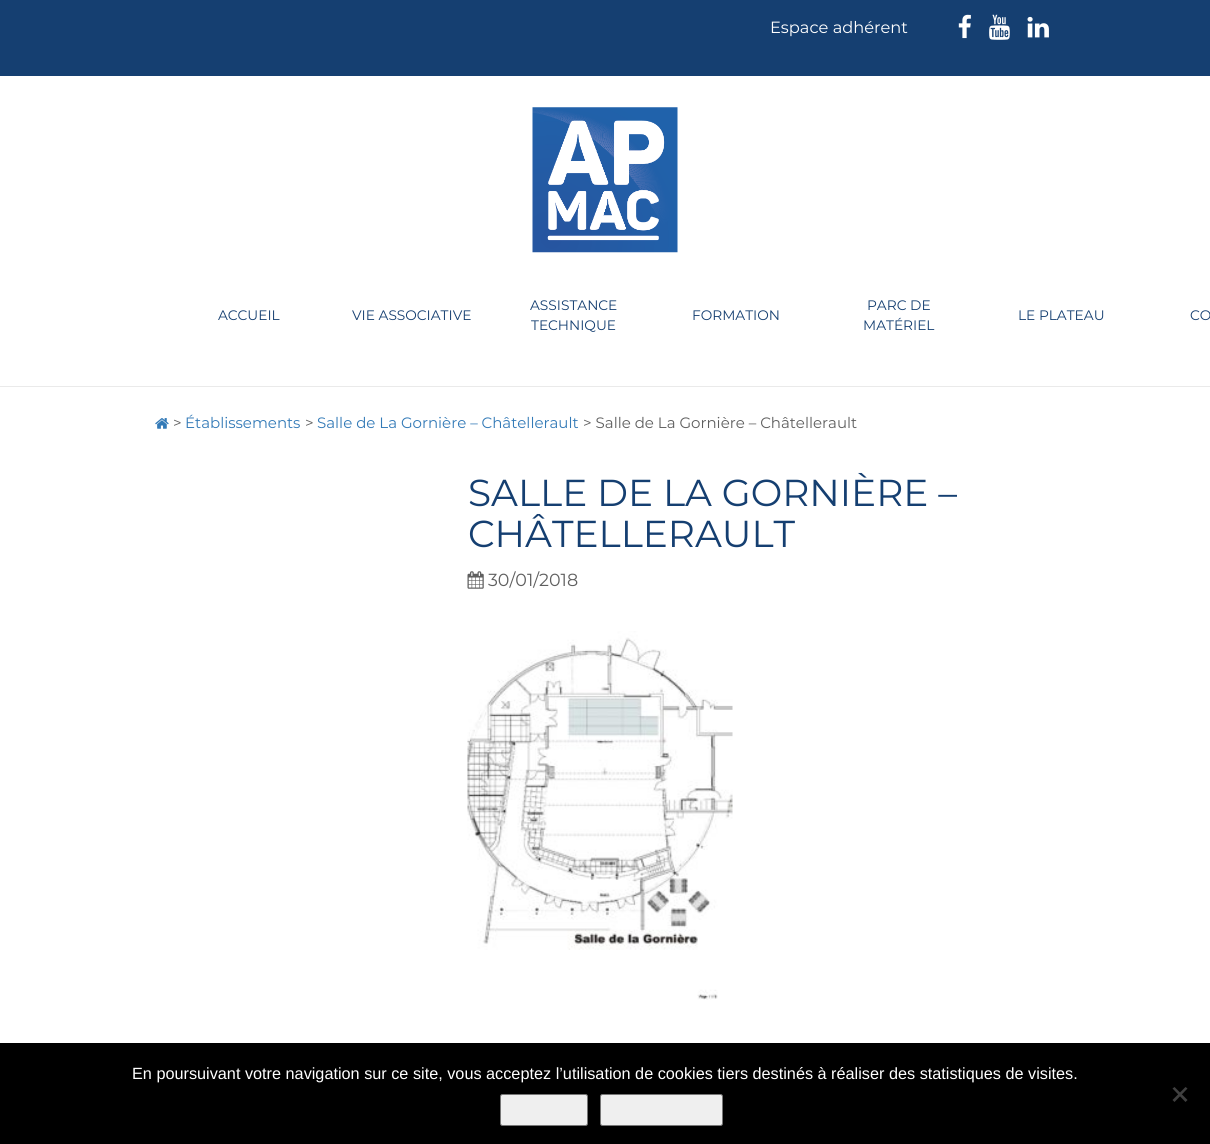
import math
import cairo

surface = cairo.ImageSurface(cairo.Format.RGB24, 1210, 1144)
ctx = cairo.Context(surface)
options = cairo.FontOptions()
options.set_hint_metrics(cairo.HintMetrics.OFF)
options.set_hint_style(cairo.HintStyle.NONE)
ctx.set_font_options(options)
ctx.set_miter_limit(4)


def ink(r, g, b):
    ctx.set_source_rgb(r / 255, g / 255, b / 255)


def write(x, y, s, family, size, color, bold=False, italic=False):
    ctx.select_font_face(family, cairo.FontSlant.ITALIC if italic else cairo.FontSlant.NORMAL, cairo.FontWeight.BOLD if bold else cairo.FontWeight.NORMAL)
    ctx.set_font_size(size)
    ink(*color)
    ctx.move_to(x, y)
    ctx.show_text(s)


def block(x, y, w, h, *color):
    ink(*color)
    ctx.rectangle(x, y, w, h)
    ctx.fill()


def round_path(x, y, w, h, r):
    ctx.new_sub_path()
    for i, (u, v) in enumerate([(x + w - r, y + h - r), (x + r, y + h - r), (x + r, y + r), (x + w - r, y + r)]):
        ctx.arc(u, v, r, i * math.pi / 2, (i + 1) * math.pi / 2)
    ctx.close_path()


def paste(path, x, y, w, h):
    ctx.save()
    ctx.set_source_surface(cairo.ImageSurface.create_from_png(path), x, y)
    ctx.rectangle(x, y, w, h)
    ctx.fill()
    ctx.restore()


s1 = dict(family="Montserrat", size=16.25, color=(255, 255, 255))
s2 = dict(family="Montserrat", size=13.75, color=(21, 63, 113))
s3 = dict(family="Montserrat", size=15, color=(95, 95, 95))
s4 = dict(family="Montserrat", size=15, color=(51, 122, 183))
s5 = dict(family="Montserrat", size=37.5, color=(21, 63, 113))
s6 = dict(family="Montserrat", size=17.5, color=(95, 95, 95))
s7 = dict(family="Liberation Sans", size=16.25, color=(255, 255, 255))

ink(255, 255, 255)
ctx.paint()
block(0, 0, 1210, 76, 21, 63, 113)
write(770, 33, "Espace adhérent", **s1)
paste("pic1.png", 958, 14, 13, 25)
paste("pic2.png", 989, 14, 21, 26)
paste("pic3.png", 1027, 16, 22, 22)
paste("pic4.png", 532, 107, 146, 146)
write(218, 320, "ACCUEIL", **s2)
write(352, 320, "VIE ASSOCIATIVE", **s2)
write(530, 310, "ASSISTANCE", **s2)
write(531, 330, "TECHNIQUE", **s2)
write(692, 320, "FORMATION", **s2)
write(867, 310, "PARC DE", **s2)
write(863, 330, "MATÉRIEL", **s2)
write(1018, 320, "LE PLATEAU", **s2)
write(1190, 320, "CO", **s2)
block(0, 386, 1210, 1, 234, 234, 234)
paste("pic5.png", 155, 418, 14, 11)
write(173, 428, ">", **s3)
write(185, 428, "Établissements", **s4)
write(305, 428, ">", **s3)
write(317, 428, "Salle de La Gornière – Châtellerault", **s4)
write(583, 428, "> Salle de La Gornière – Châtellerault", **s3)
write(468, 506, "SALLE DE LA GORNIÈRE –", **s5)
write(468, 547, "CHÂTELLERAULT", **s5)
paste("pic6.png", 467, 571, 17, 18)
write(488, 586, "30/01/2018", **s6)
paste("pic7.png", 467, 631, 266, 369)
block(0, 1043, 1210, 101, 0, 0, 0)
write(132, 1079, "En poursuivant votre navigation sur ce site, vous acceptez l’utilisation de cookies tiers destinés à réaliser des statistiques de visites.", **s7)
ink(239, 239, 239)
round_path(500.5, 1094.5, 87, 31, 2)
ctx.fill_preserve()
ink(118, 118, 118)
ctx.set_line_width(1)
ctx.stroke()
ink(239, 239, 239)
round_path(600.5, 1094.5, 122, 31, 2)
ctx.fill_preserve()
ink(118, 118, 118)
ctx.stroke()
ink(64, 64, 64)
ctx.new_path()
ctx.move_to(1185.5, 1087)
ctx.line_to(1187.5, 1088.5)
ctx.line_to(1174.5, 1102)
ctx.line_to(1172.5, 1100)
ctx.close_path()
ctx.fill()
ctx.new_path()
ctx.move_to(1172.5, 1088.5)
ctx.line_to(1174.5, 1087)
ctx.line_to(1187.5, 1100)
ctx.line_to(1185.5, 1102)
ctx.close_path()
ctx.fill()
surface.write_to_png("screenshot.png")
